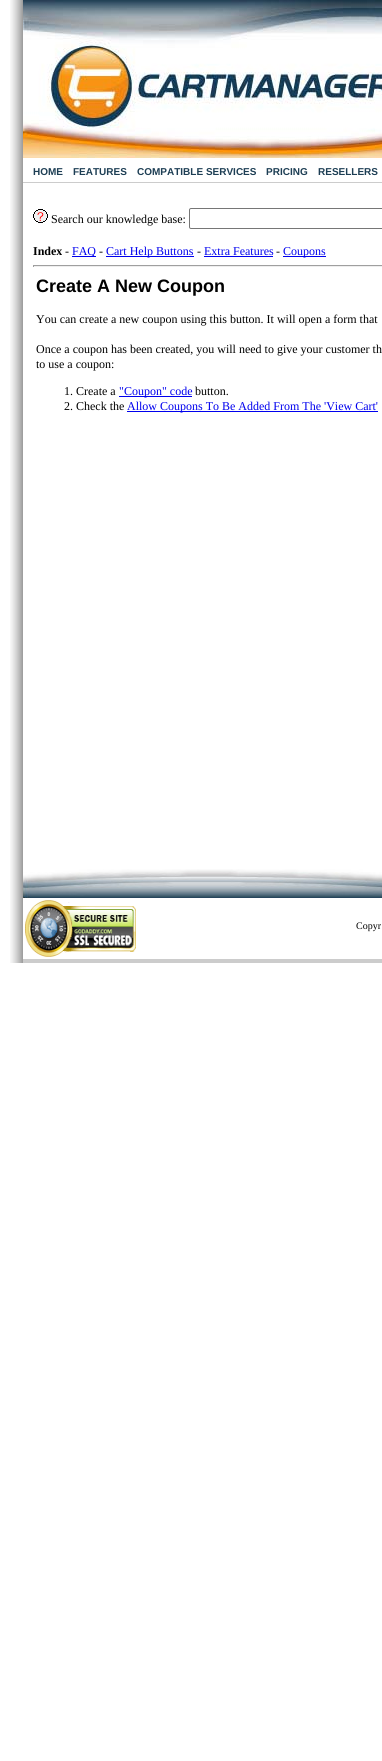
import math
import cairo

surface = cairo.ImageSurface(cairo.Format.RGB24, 382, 1761)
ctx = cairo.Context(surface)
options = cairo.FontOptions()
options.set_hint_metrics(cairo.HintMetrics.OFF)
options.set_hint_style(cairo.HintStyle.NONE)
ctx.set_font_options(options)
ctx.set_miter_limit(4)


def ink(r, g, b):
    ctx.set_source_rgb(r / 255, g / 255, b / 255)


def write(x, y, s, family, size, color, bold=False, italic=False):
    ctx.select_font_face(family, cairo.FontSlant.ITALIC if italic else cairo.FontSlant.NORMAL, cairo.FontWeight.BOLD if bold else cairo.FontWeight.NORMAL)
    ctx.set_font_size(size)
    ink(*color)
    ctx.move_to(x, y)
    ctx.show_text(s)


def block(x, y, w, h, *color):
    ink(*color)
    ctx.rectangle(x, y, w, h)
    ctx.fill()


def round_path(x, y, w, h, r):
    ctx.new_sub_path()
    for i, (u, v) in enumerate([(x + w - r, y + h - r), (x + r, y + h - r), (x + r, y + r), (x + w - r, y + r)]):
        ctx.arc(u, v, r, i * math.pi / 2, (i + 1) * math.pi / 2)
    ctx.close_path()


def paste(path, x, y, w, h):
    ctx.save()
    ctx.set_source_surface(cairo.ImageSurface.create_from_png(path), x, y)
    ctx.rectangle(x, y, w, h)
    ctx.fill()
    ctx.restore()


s1 = dict(family="Liberation Sans", size=10, color=(29, 62, 84), bold=True)
s2 = dict(family="Liberation Serif", size=12, color=(0, 0, 0))
s3 = dict(family="Liberation Serif", size=12, color=(0, 0, 0), bold=True)
s4 = dict(family="Liberation Serif", size=12, color=(0, 0, 238))
s5 = dict(family="Liberation Sans", size=18, color=(0, 0, 0), bold=True)
s6 = dict(family="Liberation Serif", size=10, color=(0, 0, 0))

ink(255, 255, 255)
ctx.paint()
paste("pic1.png", 10, 0, 13, 158)
paste("pic2.png", 23, 0, 359, 158)
paste("pic3.png", 10, 158, 13, 25)
block(23, 182, 359, 1, 204, 204, 204)
write(33, 175, "HOME", **s1)
write(73, 175, "FEATURES", **s1)
write(137, 175, "COMPATIBLE SERVICES", **s1)
write(266, 175, "PRICING", **s1)
write(318, 175, "RESELLERS", **s1)
paste("pic4.png", 10, 183, 13, 780)
paste("pic5.png", 33, 209, 15, 14)
write(51, 223, "Search our knowledge base:", **s2)
round_path(189.5, 208.5, 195, 20, 1.5)
ink(118, 118, 118)
ctx.set_line_width(1)
ctx.stroke()
write(33, 255, "Index", **s3)
write(65, 255, "-", **s2)
block(72, 256, 24, 1, 0, 0, 238)
write(72, 255, "FAQ", **s4)
write(99, 255, "-", **s2)
block(106, 256, 88, 1, 0, 0, 238)
write(106, 255, "Cart Help Buttons", **s4)
write(197, 255, "-", **s2)
write(204, 255, "Extra Features", **s4)
block(204, 256, 69, 1, 0, 0, 238)
write(276, 255, "-", **s2)
block(283, 256, 43, 1, 0, 0, 238)
write(283, 255, "Coupons", **s4)
block(33, 265, 349, 1, 159, 159, 159)
block(33, 266, 349, 1, 238, 238, 238)
block(33, 265, 1, 2, 159, 159, 159)
write(36, 292, "Create A New Coupon", **s5)
write(36, 323, "You can create a new coupon using this button. It will open a form that", **s2)
write(36, 353, "Once a coupon has been created, you will need to give your customer th", **s2)
write(36, 368, "to use a coupon:", **s2)
write(64, 395, "1. Create a", **s2)
block(119, 396, 73, 1, 0, 0, 238)
write(119, 395, "\"Coupon\" code", **s4)
write(195, 395, "button.", **s2)
write(64, 410, "2. Check the", **s2)
block(127, 411, 251, 1, 0, 0, 238)
write(127, 410, "Allow Coupons To Be Added From The 'View Cart'", **s4)
paste("pic6.png", 23, 869, 359, 29)
block(23, 959, 359, 4, 204, 204, 204)
paste("pic7.png", 25, 900, 111, 57)
write(356, 929, "Copyr", **s6)
surface.write_to_png("screenshot.png")
